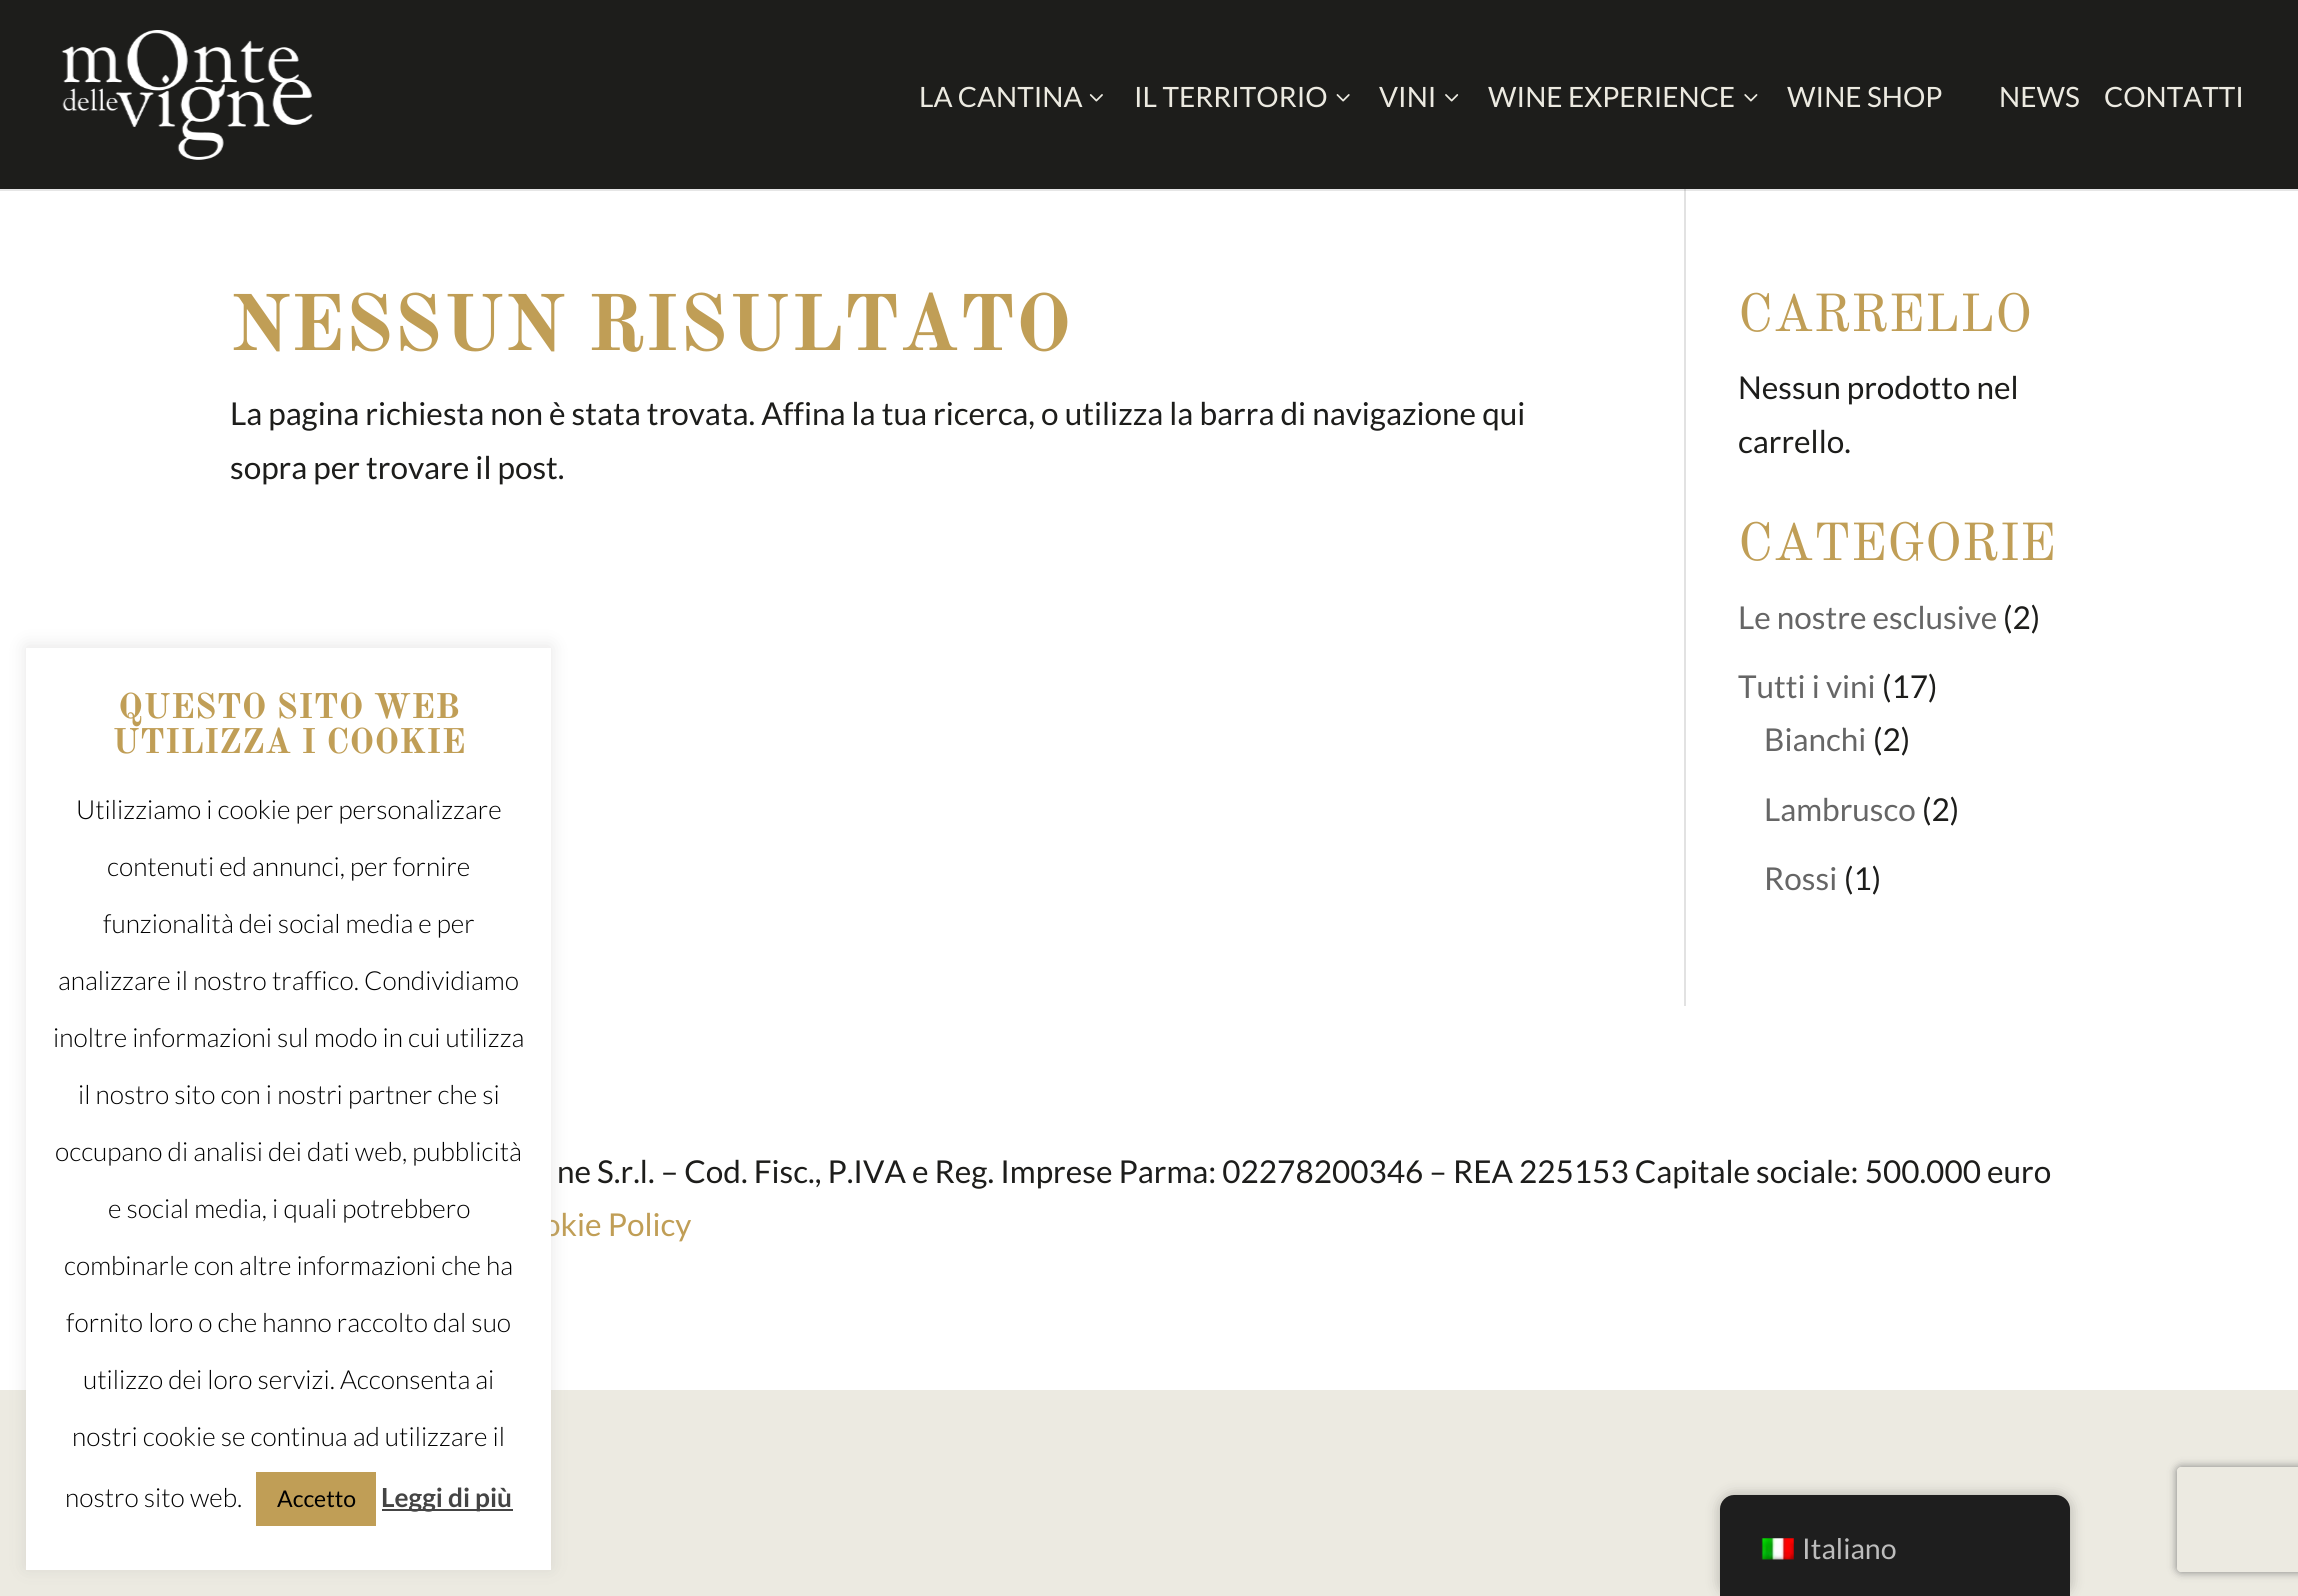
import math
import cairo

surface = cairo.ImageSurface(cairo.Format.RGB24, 2298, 1596)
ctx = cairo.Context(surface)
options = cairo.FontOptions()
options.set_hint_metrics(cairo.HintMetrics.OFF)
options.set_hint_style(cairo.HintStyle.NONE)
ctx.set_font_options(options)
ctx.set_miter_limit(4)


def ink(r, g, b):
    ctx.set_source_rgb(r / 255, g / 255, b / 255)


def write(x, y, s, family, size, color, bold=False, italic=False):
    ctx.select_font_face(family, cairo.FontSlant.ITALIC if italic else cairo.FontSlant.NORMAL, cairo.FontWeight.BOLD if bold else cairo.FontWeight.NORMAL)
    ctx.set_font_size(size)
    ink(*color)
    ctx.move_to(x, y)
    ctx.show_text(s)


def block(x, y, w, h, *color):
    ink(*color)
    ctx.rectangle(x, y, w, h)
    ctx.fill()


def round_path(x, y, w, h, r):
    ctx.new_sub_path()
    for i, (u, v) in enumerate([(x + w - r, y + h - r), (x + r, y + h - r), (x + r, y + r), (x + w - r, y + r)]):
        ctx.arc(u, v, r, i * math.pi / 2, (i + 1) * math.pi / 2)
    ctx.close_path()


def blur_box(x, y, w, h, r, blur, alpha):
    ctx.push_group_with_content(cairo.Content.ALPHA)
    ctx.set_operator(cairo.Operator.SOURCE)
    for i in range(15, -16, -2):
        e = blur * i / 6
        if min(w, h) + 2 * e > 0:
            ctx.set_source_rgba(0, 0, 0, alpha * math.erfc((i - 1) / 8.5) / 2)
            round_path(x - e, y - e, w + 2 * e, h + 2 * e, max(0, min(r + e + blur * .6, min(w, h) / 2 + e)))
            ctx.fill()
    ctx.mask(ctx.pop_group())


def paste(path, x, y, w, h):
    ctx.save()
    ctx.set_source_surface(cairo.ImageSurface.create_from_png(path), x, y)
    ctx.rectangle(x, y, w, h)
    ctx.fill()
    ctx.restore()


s1 = dict(family="Lato", size=28, color=(236, 234, 225))
s2 = dict(family="Old Standard TT", size=78.75, color=(192, 158, 86), bold=True)
s3 = dict(family="Lato", size=31.5, color=(29, 29, 27))
s4 = dict(family="Old Standard TT", size=52.5, color=(192, 158, 86))
s5 = dict(family="Lato", size=31.5, color=(102, 102, 102))
s6 = dict(family="Lato", size=31.5, color=(192, 158, 86))
s7 = dict(family="Old Standard TT", size=35, color=(192, 158, 86), bold=True)
s8 = dict(family="Lato Light", size=26.25, color=(0, 0, 0))
s9 = dict(family="Lato", size=23, color=(0, 0, 0))
s10 = dict(family="Lato", size=26.25, color=(68, 68, 68), bold=True)
s11 = dict(family="Lato", size=28.5, color=(189, 189, 189))

ink(236, 234, 225)
ctx.paint()
block(0, 189, 2298, 1201, 255, 255, 255)
block(1684, 189, 2, 817, 226, 226, 226)
ctx.set_source_rgba(0, 0, 0, 0.1)
ctx.new_path()
ctx.move_to(0, 189)
ctx.line_to(0, 191)
ctx.line_to(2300, 191)
ctx.line_to(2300, 2)
ctx.line_to(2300, 189)
ctx.close_path()
ctx.fill()
block(0, 0, 2298, 189, 29, 29, 27)
paste("pic1.png", 61, 30, 252, 130)
write(919, 107, "LA CANTINA", **s1)
paste("pic2.png", 1089, 94, 14, 8)
write(1134, 107, "IL TERRITORIO", **s1)
paste("pic3.png", 1336, 94, 14, 8)
write(1379, 107, "VINI", **s1)
paste("pic4.png", 1445, 94, 14, 8)
write(1488, 107, "WINE EXPERIENCE", **s1)
paste("pic5.png", 1744, 94, 14, 8)
write(1787, 107, "WINE SHOP", **s1)
write(1999, 107, "NEWS", **s1)
write(2104, 107, "CONTATTI", **s1)
write(230, 350, "NESSUN RISULTATO", **s2)
write(230, 425, "La pagina richiesta non è stata trovata. Affina la tua ricerca, o utilizza la barra di navigazione qui", **s3)
write(230, 479, "sopra per trovare il post.", **s3)
write(1738, 331, "CARRELLO", **s4)
write(1738, 399, "Nessun prodotto nel", **s3)
write(1738, 453, "carrello.", **s3)
write(1738, 560, "CATEGORIE", **s4)
write(1738, 629, "Le nostre esclusive", **s5)
write(2003, 629, "(2)", **s3)
write(1738, 698, "Tutti i vini", **s5)
write(1882, 698, "(17)", **s3)
write(1764, 751, "Bianchi", **s5)
write(1873, 751, "(2)", **s3)
write(1764, 821, "Lambrusco", **s5)
write(1922, 821, "(2)", **s3)
write(1764, 890, "Rossi", **s5)
write(1844, 890, "(1)", **s3)
write(557, 1183, "ne S.r.l. – Cod. Fisc., P.IVA e Reg. Imprese Parma: 02278200346 – REA 225153 Capitale sociale: 500.000 euro", **s3)
write(543, 1236, "okie Policy", **s6)
ink(172, 171, 171)
blur_box(26, 646, 525, 922, 0, 9, 0.3)
block(26, 648, 525, 922, 255, 255, 255)
write(118, 718, "QUESTO SITO WEB", **s7)
write(112, 753, "UTILIZZA I COOKIE", **s7)
write(76, 819, "Utilizziamo i cookie per personalizzare", **s8)
write(107, 876, "contenuti ed annunci, per fornire", **s8)
write(103, 933, "funzionalità dei social media e per", **s8)
write(58, 990, "analizzare il nostro traffico. Condividiamo", **s8)
write(53, 1047, "inoltre informazioni sul modo in cui utilizza", **s8)
write(78, 1104, "il nostro sito con i nostri partner che si", **s8)
write(55, 1161, "occupano di analisi dei dati web, pubblicità", **s8)
write(108, 1218, "e social media, i quali potrebbero", **s8)
write(64, 1275, "combinarle con altre informazioni che ha", **s8)
write(66, 1332, "fornito loro o che hanno raccolto dal suo", **s8)
write(83, 1389, "utilizzo dei loro servizi. Acconsenta ai", **s8)
write(72, 1446, "nostri cookie se continua ad utilizzare il", **s8)
write(65, 1507, "nostro sito web.", **s8)
block(256, 1472, 120, 54, 192, 158, 86)
write(277, 1507, "Accetto", **s9)
block(382, 1509, 131, 2, 68, 68, 68)
write(381, 1507, "Leggi di più", **s10)
ink(0, 0, 0)
blur_box(1720, 1495, 350, 101, 14, 7, 0.25)
ink(30, 30, 30)
ctx.new_path()
ctx.move_to(1734, 1495)
ctx.line_to(2056, 1495)
ctx.curve_to(2063.5, 1495, 2070, 1501.5, 2070, 1509)
ctx.line_to(2070, 1596)
ctx.line_to(1720, 1596)
ctx.line_to(1720, 1509)
ctx.curve_to(1720, 1501.5, 1726.5, 1495, 1734, 1495)
ctx.close_path()
ctx.fill()
paste("pic6.png", 1761, 1538, 33, 22)
write(1802, 1559, "Italiano", **s11)
ctx.save()
ctx.set_fill_rule(cairo.FillRule.EVEN_ODD)
ctx.new_path()
ctx.move_to(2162, 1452)
ctx.line_to(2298, 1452)
ctx.line_to(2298, 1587)
ctx.line_to(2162, 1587)
ctx.close_path()
ctx.move_to(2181, 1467)
ctx.line_to(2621, 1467)
ctx.curve_to(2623, 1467, 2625, 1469, 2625, 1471)
ctx.line_to(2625, 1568)
ctx.curve_to(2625, 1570, 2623, 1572, 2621, 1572)
ctx.line_to(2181, 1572)
ctx.curve_to(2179, 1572, 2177, 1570, 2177, 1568)
ctx.line_to(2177, 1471)
ctx.curve_to(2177, 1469, 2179, 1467, 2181, 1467)
ctx.close_path()
ctx.clip()
ink(128, 128, 128)
blur_box(2177, 1467, 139, 105, 4, 4.5, 1)
ctx.restore()
surface.write_to_png("screenshot.png")
